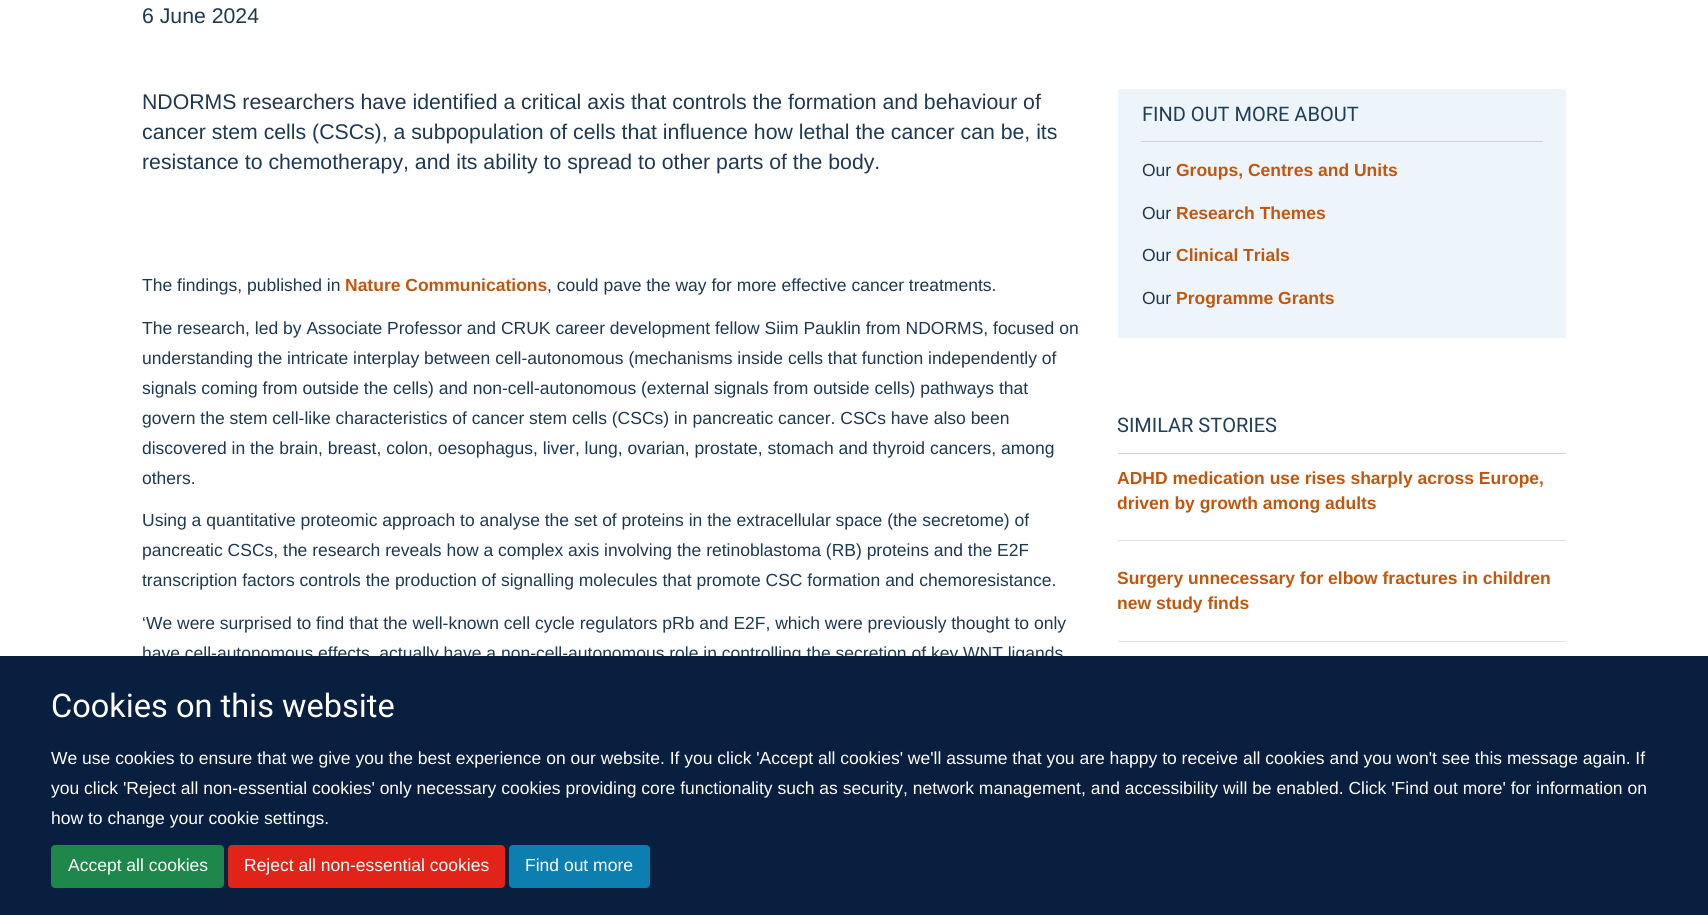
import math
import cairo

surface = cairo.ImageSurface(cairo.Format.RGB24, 1708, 915)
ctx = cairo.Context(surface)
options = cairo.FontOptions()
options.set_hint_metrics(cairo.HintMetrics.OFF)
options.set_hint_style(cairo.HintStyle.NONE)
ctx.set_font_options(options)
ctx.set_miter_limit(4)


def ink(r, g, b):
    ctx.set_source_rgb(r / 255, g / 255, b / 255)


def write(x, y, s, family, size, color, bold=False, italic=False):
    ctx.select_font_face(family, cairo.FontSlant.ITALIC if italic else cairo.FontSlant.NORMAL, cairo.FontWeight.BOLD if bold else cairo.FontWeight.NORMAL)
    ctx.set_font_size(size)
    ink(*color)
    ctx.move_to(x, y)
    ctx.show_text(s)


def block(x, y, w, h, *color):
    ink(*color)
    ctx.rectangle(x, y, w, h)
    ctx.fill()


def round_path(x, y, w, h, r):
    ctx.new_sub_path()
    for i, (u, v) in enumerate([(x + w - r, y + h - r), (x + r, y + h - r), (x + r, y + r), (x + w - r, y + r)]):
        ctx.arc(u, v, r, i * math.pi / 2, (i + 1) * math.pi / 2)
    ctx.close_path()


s1 = dict(family="Liberation Sans", size=21.25, color=(29, 56, 80))
s2 = dict(family="Liberation Sans", size=17.5, color=(29, 56, 80))
s3 = dict(family="Liberation Sans", size=17.5, color=(193, 87, 14), bold=True)
s4 = dict(family="Heebo", size=20, color=(32, 62, 88))
s5 = dict(family="Heebo", size=32.5, color=(255, 255, 255))
s6 = dict(family="Liberation Sans", size=17.5, color=(255, 255, 255))

ink(255, 255, 255)
ctx.paint()
write(142, 23, "6 June 2024", **s1)
write(142, 109, "NDORMS researchers have identified a critical axis that controls the formation and behaviour of", **s1)
write(142, 139, "cancer stem cells (CSCs), a subpopulation of cells that influence how lethal the cancer can be, its", **s1)
write(142, 169, "resistance to chemotherapy, and its ability to spread to other parts of the body.", **s1)
write(142, 291, "The findings, published in", **s2)
write(345, 291, "Nature Communications", **s3)
write(547, 291, ", could pave the way for more effective cancer treatments.", **s2)
write(142, 334, "The research, led by Associate Professor and CRUK career development fellow Siim Pauklin from NDORMS, focused on", **s2)
write(142, 364, "understanding the intricate interplay between cell-autonomous (mechanisms inside cells that function independently of", **s2)
write(142, 394, "signals coming from outside the cells) and non-cell-autonomous (external signals from outside cells) pathways that", **s2)
write(142, 424, "govern the stem cell-like characteristics of cancer stem cells (CSCs) in pancreatic cancer. CSCs have also been", **s2)
write(142, 454, "discovered in the brain, breast, colon, oesophagus, liver, lung, ovarian, prostate, stomach and thyroid cancers, among", **s2)
write(142, 484, "others.", **s2)
write(142, 526, "Using a quantitative proteomic approach to analyse the set of proteins in the extracellular space (the secretome) of", **s2)
write(142, 556, "pancreatic CSCs, the research reveals how a complex axis involving the retinoblastoma (RB) proteins and the E2F", **s2)
write(142, 586, "transcription factors controls the production of signalling molecules that promote CSC formation and chemoresistance.", **s2)
write(142, 629, "‘We were surprised to find that the well-known cell cycle regulators pRb and E2F, which were previously thought to only", **s2)
write(142, 659, "have cell-autonomous effects, actually have a non-cell-autonomous role in controlling the secretion of key WNT ligands", **s2)
block(1118, 89, 448, 249, 237, 244, 250)
block(1141, 141, 402, 1, 210, 208, 208)
write(1142, 121, "FIND OUT MORE ABOUT", **s4)
write(1142, 176, "Our", **s2)
write(1176, 176, "Groups, Centres and Units", **s3)
write(1142, 219, "Our", **s2)
write(1176, 219, "Research Themes", **s3)
write(1142, 261, "Our", **s2)
write(1176, 261, "Clinical Trials", **s3)
write(1142, 304, "Our", **s2)
write(1176, 304, "Programme Grants", **s3)
block(1118, 453, 448, 1, 210, 208, 208)
write(1117, 432, "SIMILAR STORIES", **s4)
block(1118, 540, 448, 1, 223, 225, 228)
write(1117, 484, "ADHD medication use rises sharply across Europe,", **s3)
write(1117, 509, "driven by growth among adults", **s3)
block(1118, 641, 448, 1, 223, 225, 228)
write(1117, 584, "Surgery unnecessary for elbow fractures in children", **s3)
write(1117, 609, "new study finds", **s3)
block(0, 656, 1708, 259, 9, 31, 64)
write(51, 717, "Cookies on this website", **s5)
write(51, 764, "We use cookies to ensure that we give you the best experience on our website. If you click 'Accept all cookies' we'll assume that you are happy to receive all cookies and you won't see this message again. If", **s6)
write(51, 794, "you click 'Reject all non-essential cookies' only necessary cookies providing core functionality such as security, network management, and accessibility will be enabled. Click 'Find out more' for information on", **s6)
write(51, 824, "how to change your cookie settings.", **s6)
ink(30, 135, 75)
round_path(51.5, 845.5, 172, 42, 3.5)
ctx.fill_preserve()
ctx.set_line_width(1)
ctx.stroke()
write(68, 871, "Accept all cookies", **s6)
ink(226, 35, 26)
round_path(228.5, 845.5, 276, 42, 3.5)
ctx.fill_preserve()
ctx.stroke()
write(244, 871, "Reject all non-essential cookies", **s6)
ink(13, 126, 176)
round_path(509.5, 845.5, 140, 42, 3.5)
ctx.fill_preserve()
ctx.stroke()
write(525, 871, "Find out more", **s6)
surface.write_to_png("screenshot.png")
